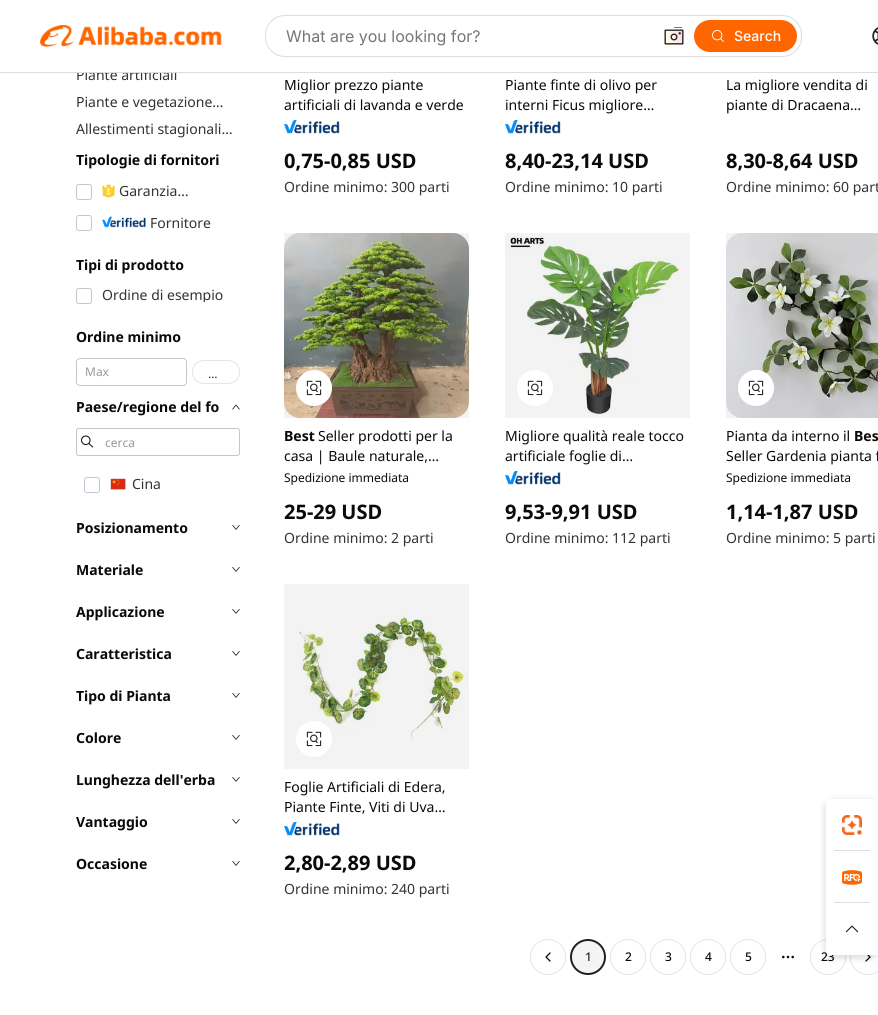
import math
import cairo

surface = cairo.ImageSurface(cairo.Format.RGB24, 878, 1015)
ctx = cairo.Context(surface)
options = cairo.FontOptions()
options.set_hint_metrics(cairo.HintMetrics.OFF)
options.set_hint_style(cairo.HintStyle.NONE)
ctx.set_font_options(options)
ctx.set_miter_limit(4)


def ink(r, g, b):
    ctx.set_source_rgb(r / 255, g / 255, b / 255)


def write(x, y, s, family, size, color, bold=False, italic=False):
    ctx.select_font_face(family, cairo.FontSlant.ITALIC if italic else cairo.FontSlant.NORMAL, cairo.FontWeight.BOLD if bold else cairo.FontWeight.NORMAL)
    ctx.set_font_size(size)
    ink(*color)
    ctx.move_to(x, y)
    ctx.show_text(s)


def block(x, y, w, h, *color):
    ink(*color)
    ctx.rectangle(x, y, w, h)
    ctx.fill()


def round_path(x, y, w, h, r):
    ctx.new_sub_path()
    for i, (u, v) in enumerate([(x + w - r, y + h - r), (x + r, y + h - r), (x + r, y + r), (x + w - r, y + r)]):
        ctx.arc(u, v, r, i * math.pi / 2, (i + 1) * math.pi / 2)
    ctx.close_path()


def blur_box(x, y, w, h, r, blur, alpha):
    ctx.push_group_with_content(cairo.Content.ALPHA)
    ctx.set_operator(cairo.Operator.SOURCE)
    for i in range(15, -16, -2):
        e = blur * i / 6
        if min(w, h) + 2 * e > 0:
            ctx.set_source_rgba(0, 0, 0, alpha * math.erfc((i - 1) / 8.5) / 2)
            round_path(x - e, y - e, w + 2 * e, h + 2 * e, max(0, min(r + e + blur * .6, min(w, h) / 2 + e)))
            ctx.fill()
    ctx.mask(ctx.pop_group())


def paste(path, x, y, w, h):
    ctx.save()
    ctx.set_source_surface(cairo.ImageSurface.create_from_png(path), x, y)
    ctx.rectangle(x, y, w, h)
    ctx.fill()
    ctx.restore()


s1 = dict(family="Noto Sans", size=14, color=(51, 51, 51))
s2 = dict(family="Inter", size=16, color=(118, 118, 118))
s3 = dict(family="Inter Medium", size=14, color=(255, 255, 255))
s4 = dict(family="Noto Sans", size=14, color=(12, 10, 9), bold=True)
s5 = dict(family="Noto Sans", size=12, color=(153, 153, 153))
s6 = dict(family="Noto Sans", size=12, color=(51, 51, 51))
s7 = dict(family="Noto Sans", size=14, color=(12, 10, 9))
s8 = dict(family="Noto Sans", size=20, color=(12, 10, 9), bold=True)
s9 = dict(family="Noto Sans", size=12, color=(12, 10, 9))
s10 = dict(family="Noto Sans Medium", size=12, color=(34, 34, 34))
s11 = dict(family="Noto Sans Medium", size=12, color=(12, 10, 9))

ink(255, 255, 255)
ctx.paint()
write(76, 80, "Piante artificiali", **s1)
block(77, 69, 100, 3, 255, 255, 255)
block(0, 72, 878, 1, 221, 221, 221)
paste("pic1.png", 40, 25, 182, 22)
round_path(265, 15, 537, 42, 20)
ctx.fill()
ink(255, 255, 255)
round_path(266, 16, 535, 40, 19)
ctx.fill()
write(286, 42, "What are you looking for?", **s2)
paste("pic2.png", 664, 27, 20, 18)
ink(255, 102, 0)
round_path(694, 20, 103, 32, 16)
ctx.fill()
paste("pic3.png", 712, 30, 12, 12)
write(734, 41, "Search", **s3)
paste("pic4.png", 872, 27, 6, 18)
write(76, 107, "Piante e vegetazione…", **s1)
write(76, 134, "Allestimenti stagionali…", **s1)
write(76, 165, "Tipologie di fornitori", **s4)
round_path(76.5, 184.5, 15, 15, 2.5)
ink(196, 198, 207)
ctx.set_line_width(1)
ctx.stroke()
paste("pic5.png", 102, 184, 13, 14)
write(119, 196, "Garanzia…", **s1)
round_path(76.5, 215.5, 15, 15, 2.5)
ink(196, 198, 207)
ctx.stroke()
paste("pic6.png", 102, 216, 44, 12)
write(150, 228, "Fornitore", **s1)
write(76, 270, "Tipi di prodotto", **s4)
round_path(76.5, 288.5, 15, 15, 2.5)
ink(196, 198, 207)
ctx.stroke()
ctx.save()
ctx.rectangle(102, 288, 121, 14)
ctx.clip()
write(102, 300, "Ordine di esempio", **s1)
ctx.restore()
write(76, 342, "Ordine minimo", **s4)
round_path(76.5, 358.5, 110, 27, 3.5)
ink(196, 198, 207)
ctx.stroke()
write(85, 376, "Max", **s5)
round_path(192.5, 360.5, 47, 23, 11.5)
ink(231, 229, 228)
ctx.stroke()
write(208, 378, "…", **s6)
write(76, 412, "Paese/regione del fo", **s4)
paste("pic7.png", 232, 404, 8, 6)
round_path(76.5, 428.5, 163, 27, 2.5)
ink(196, 198, 207)
ctx.stroke()
paste("pic8.png", 81, 435, 12, 13)
write(105, 447, "cerca", **s5)
round_path(84.5, 477.5, 15, 15, 2.5)
ink(196, 198, 207)
ctx.stroke()
paste("pic9.png", 110, 478, 16, 12)
write(132, 489, "Cina", **s1)
write(76, 533, "Posizionamento", **s4)
paste("pic10.png", 232, 525, 8, 5)
write(76, 575, "Materiale", **s4)
paste("pic10.png", 232, 567, 8, 5)
write(76, 617, "Applicazione", **s4)
paste("pic10.png", 232, 609, 8, 5)
write(76, 659, "Caratteristica", **s4)
paste("pic10.png", 232, 651, 8, 5)
write(76, 701, "Tipo di Pianta", **s4)
paste("pic10.png", 232, 693, 8, 5)
write(76, 743, "Colore", **s4)
paste("pic10.png", 232, 735, 8, 5)
write(76, 785, "Lunghezza dell'erba", **s4)
paste("pic10.png", 232, 777, 8, 5)
write(76, 827, "Vantaggio", **s4)
paste("pic10.png", 232, 819, 8, 5)
write(76, 869, "Occasione", **s4)
paste("pic10.png", 232, 861, 8, 5)
write(284, 90, "Miglior prezzo piante", **s7)
write(284, 110, "artificiali di lavanda e verde", **s7)
paste("pic11.png", 284, 120, 56, 14)
write(284, 168, "0,75-0,85 USD", **s8)
write(284, 192, "Ordine minimo: 300 parti", **s1)
write(505, 90, "Piante finte di olivo per", **s7)
write(505, 110, "interni Ficus migliore…", **s7)
paste("pic11.png", 505, 120, 56, 14)
write(505, 168, "8,40-23,14 USD", **s8)
write(505, 192, "Ordine minimo: 10 parti", **s1)
write(726, 90, "La migliore vendita di", **s7)
write(726, 110, "piante di Dracaena…", **s7)
write(726, 168, "8,30-8,64 USD", **s8)
write(726, 192, "Ordine minimo: 60 part", **s1)
paste("pic12.png", 284, 233, 185, 185)
ctx.set_source_rgba(0, 0, 0, 0.05)
ctx.rectangle(284, 233, 185, 185)
ctx.fill()
ink(255, 255, 255)
ctx.arc(314, 388, 18, 0, 2 * math.pi)
ctx.fill()
paste("pic13.png", 306, 380, 16, 16)
write(284, 441, "Best", **s4)
write(318, 441, "Seller prodotti per la", **s7)
write(284, 461, "casa | Baule naturale,…", **s7)
write(284, 482, "Spedizione immediata", **s9)
write(284, 519, "25-29 USD", **s8)
write(284, 543, "Ordine minimo: 2 parti", **s1)
paste("pic14.png", 510, 236, 170, 179)
ctx.set_source_rgba(0, 0, 0, 0.05)
ctx.rectangle(505, 233, 185, 185)
ctx.fill()
ink(255, 255, 255)
ctx.arc(535, 388, 18, 0, 2 * math.pi)
ctx.fill()
paste("pic13.png", 527, 380, 16, 16)
write(505, 441, "Migliore qualità reale tocco", **s7)
write(505, 461, "artificiale foglie di…", **s7)
paste("pic11.png", 505, 471, 56, 14)
write(505, 519, "9,53-9,91 USD", **s8)
write(505, 543, "Ordine minimo: 112 parti", **s1)
paste("pic15.png", 726, 233, 152, 185)
ctx.set_source_rgba(0, 0, 0, 0.05)
ctx.rectangle(726, 233, 152, 185)
ctx.fill()
ink(255, 255, 255)
ctx.arc(756, 388, 18, 0, 2 * math.pi)
ctx.fill()
paste("pic13.png", 748, 380, 16, 16)
write(726, 441, "Pianta da interno il", **s7)
write(854, 441, "Bes", **s4)
write(726, 461, "Seller Gardenia pianta f", **s7)
write(726, 482, "Spedizione immediata", **s9)
write(726, 519, "1,14-1,87 USD", **s8)
write(726, 543, "Ordine minimo: 5 parti", **s1)
paste("pic16.png", 298, 613, 169, 127)
ctx.set_source_rgba(0, 0, 0, 0.05)
ctx.rectangle(284, 584, 185, 185)
ctx.fill()
ink(255, 255, 255)
ctx.arc(314, 739, 18, 0, 2 * math.pi)
ctx.fill()
paste("pic13.png", 306, 731, 16, 16)
write(284, 792, "Foglie Artificiali di Edera,", **s7)
write(284, 812, "Piante Finte, Viti di Uva…", **s7)
paste("pic17.png", 284, 822, 56, 14)
write(284, 870, "2,80-2,89 USD", **s8)
write(284, 894, "Ordine minimo: 240 parti", **s1)
ctx.new_path()
ctx.arc(548, 957, 17.5, 0, 2 * math.pi)
ink(231, 229, 228)
ctx.stroke()
ctx.new_path()
ctx.move_to(550, 961)
ctx.line_to(546, 957)
ctx.line_to(550, 953)
ink(12, 10, 9)
ctx.set_line_width(1.3)
ctx.set_line_cap(cairo.LineCap.ROUND)
ctx.set_line_join(cairo.LineJoin.ROUND)
ctx.stroke()
ink(244, 244, 244)
ctx.arc(588, 957, 17, 0, 2 * math.pi)
ctx.fill_preserve()
ink(34, 34, 34)
ctx.set_line_width(2)
ctx.set_line_cap(cairo.LineCap.BUTT)
ctx.set_line_join(cairo.LineJoin.MITER)
ctx.stroke()
write(585, 961, "1", **s10)
ctx.new_path()
ctx.arc(628, 957, 17.5, 0, 2 * math.pi)
ink(231, 229, 228)
ctx.set_line_width(1)
ctx.stroke()
write(625, 961, "2", **s11)
ctx.new_path()
ctx.arc(668, 957, 17.5, 0, 2 * math.pi)
ink(231, 229, 228)
ctx.stroke()
write(665, 961, "3", **s11)
ctx.new_path()
ctx.arc(708, 957, 17.5, 0, 2 * math.pi)
ink(231, 229, 228)
ctx.stroke()
write(705, 961, "4", **s11)
ctx.new_path()
ctx.arc(748, 957, 17.5, 0, 2 * math.pi)
ink(231, 229, 228)
ctx.stroke()
write(745, 961, "5", **s11)
ctx.new_path()
ctx.arc(788, 957, 0.7, 0, 2 * math.pi)
ctx.set_line_width(1.3)
ctx.stroke()
ctx.arc(792.7, 957, 0.7, 0, 2 * math.pi)
ctx.stroke()
ctx.arc(783.3, 957, 0.7, 0, 2 * math.pi)
ctx.stroke()
ctx.arc(828, 957, 17.5, 0, 2 * math.pi)
ink(231, 229, 228)
ctx.set_line_width(1)
ctx.stroke()
write(821, 961, "23", **s11)
ctx.new_path()
ctx.arc(868, 957, 17.5, 0, 2 * math.pi)
ink(231, 229, 228)
ctx.stroke()
ctx.new_path()
ctx.move_to(866, 961)
ctx.line_to(870, 957)
ctx.line_to(866, 953)
ink(12, 10, 9)
ctx.set_line_width(1.3)
ctx.set_line_cap(cairo.LineCap.ROUND)
ctx.set_line_join(cairo.LineJoin.ROUND)
ctx.stroke()
ink(0, 0, 0)
blur_box(824, 799, 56, 160, 10, 3, 0.12)
ink(255, 255, 255)
ctx.new_path()
ctx.move_to(834, 799)
ctx.line_to(878, 799)
ctx.line_to(878, 955)
ctx.line_to(834, 955)
ctx.curve_to(829.5, 955, 826, 951.5, 826, 947)
ctx.line_to(826, 807)
ctx.curve_to(826, 802.5, 829.5, 799, 834, 799)
ctx.close_path()
ctx.fill()
round_path(826, 799, 52, 52, 4)
ctx.fill()
paste("pic18.png", 842, 815, 20, 20)
block(834, 850, 36, 1, 221, 221, 221)
paste("pic19.png", 842, 870, 20, 15)
block(834, 902, 36, 1, 221, 221, 221)
ink(255, 255, 255)
round_path(826, 903, 52, 52, 4)
ctx.fill()
paste("pic20.png", 845, 925, 14, 8)
surface.write_to_png("screenshot.png")
